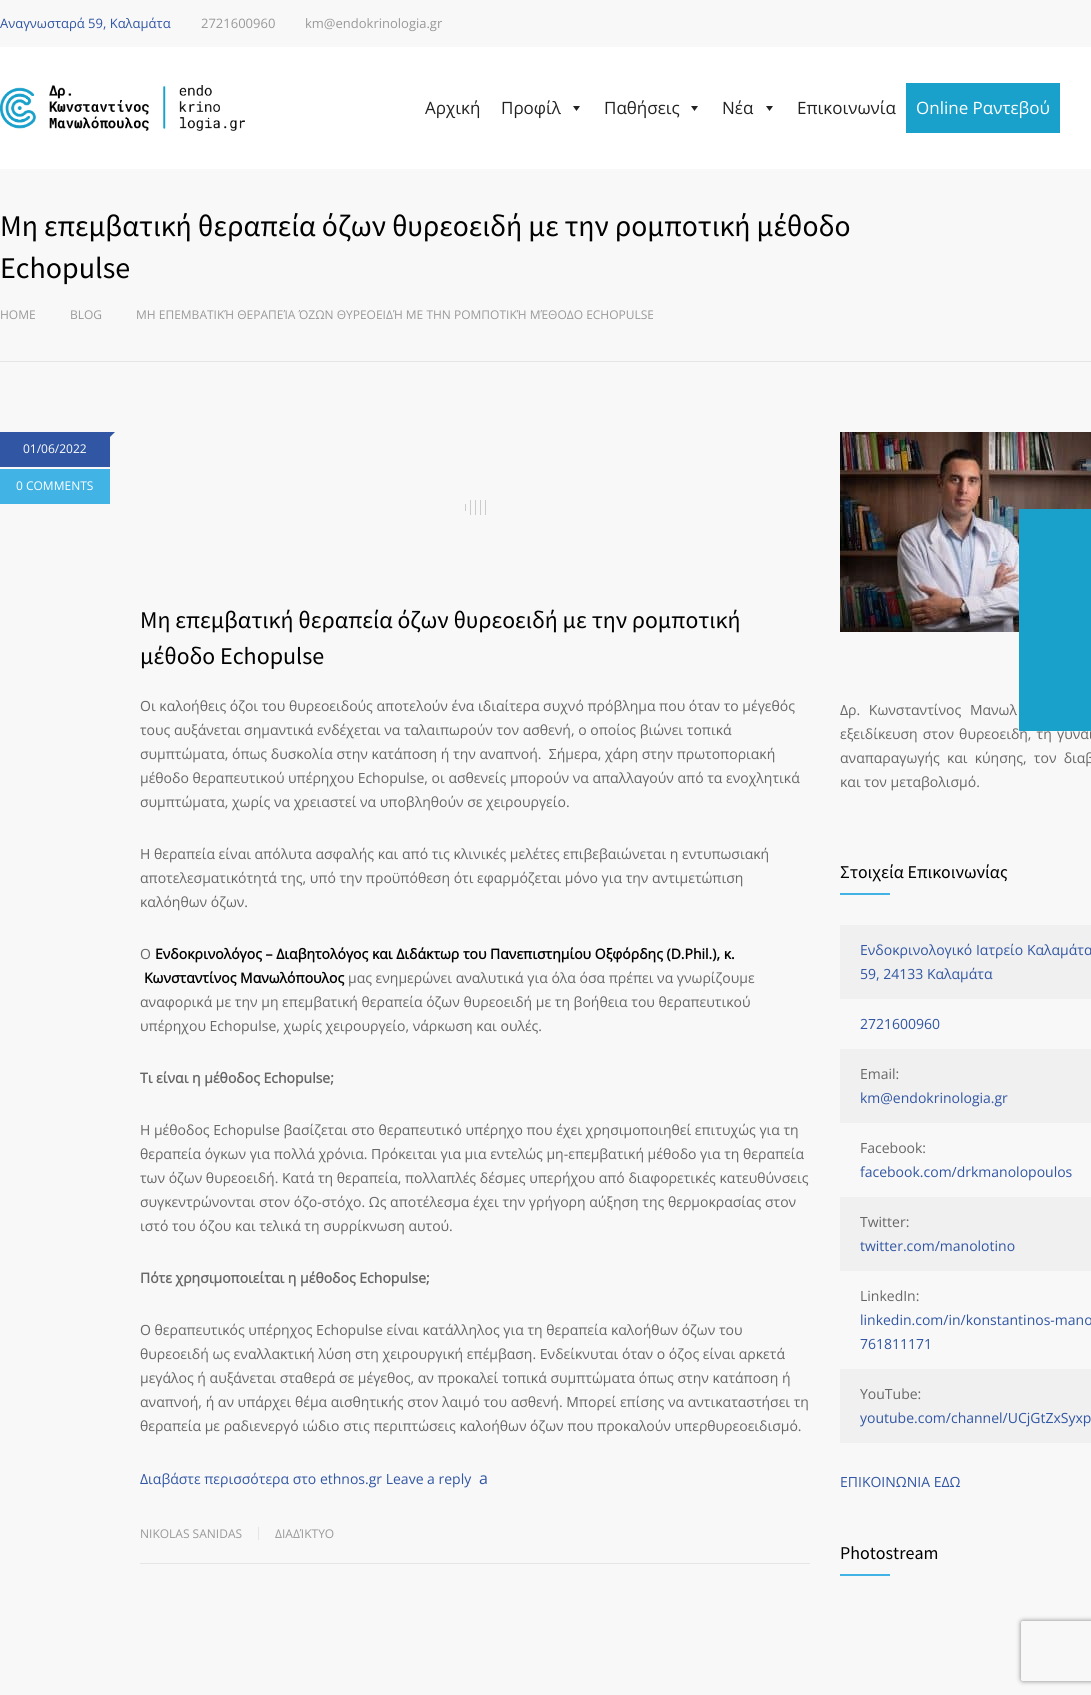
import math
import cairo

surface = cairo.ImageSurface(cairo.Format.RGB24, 1091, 1695)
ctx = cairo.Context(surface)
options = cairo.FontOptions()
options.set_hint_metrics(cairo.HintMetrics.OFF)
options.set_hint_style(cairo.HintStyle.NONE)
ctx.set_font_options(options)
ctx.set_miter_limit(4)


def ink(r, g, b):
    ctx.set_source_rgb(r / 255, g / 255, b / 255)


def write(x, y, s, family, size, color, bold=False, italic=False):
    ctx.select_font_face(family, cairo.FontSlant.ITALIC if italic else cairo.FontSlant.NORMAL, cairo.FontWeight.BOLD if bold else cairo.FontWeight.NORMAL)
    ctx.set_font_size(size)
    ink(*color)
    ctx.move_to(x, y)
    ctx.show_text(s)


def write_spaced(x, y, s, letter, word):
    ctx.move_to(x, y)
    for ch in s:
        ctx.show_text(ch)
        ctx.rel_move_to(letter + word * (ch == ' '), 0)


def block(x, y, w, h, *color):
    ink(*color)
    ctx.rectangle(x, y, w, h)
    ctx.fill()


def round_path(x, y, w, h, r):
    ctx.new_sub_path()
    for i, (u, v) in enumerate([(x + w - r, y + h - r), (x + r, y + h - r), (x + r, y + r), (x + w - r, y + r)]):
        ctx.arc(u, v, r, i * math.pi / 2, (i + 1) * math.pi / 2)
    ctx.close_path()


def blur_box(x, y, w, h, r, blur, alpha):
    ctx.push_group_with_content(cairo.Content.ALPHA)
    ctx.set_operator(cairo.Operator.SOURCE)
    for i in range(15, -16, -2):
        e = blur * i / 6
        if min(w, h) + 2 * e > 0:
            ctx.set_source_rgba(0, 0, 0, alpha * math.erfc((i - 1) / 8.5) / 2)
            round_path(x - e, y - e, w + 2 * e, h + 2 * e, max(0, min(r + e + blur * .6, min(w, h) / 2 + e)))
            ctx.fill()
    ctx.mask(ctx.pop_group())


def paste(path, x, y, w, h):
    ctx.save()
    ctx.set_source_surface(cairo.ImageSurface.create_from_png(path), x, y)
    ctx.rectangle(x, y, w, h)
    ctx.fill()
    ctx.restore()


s1 = dict(family="Open Sans", size=13, color=(49, 86, 163))
s2 = dict(family="Open Sans", size=13, color=(153, 153, 153))
s3 = dict(family="Open Sans", size=17, color=(34, 34, 34))
s4 = dict(family="Open Sans", size=17, color=(255, 255, 255))
s5 = dict(family="Source Sans Pro", size=30, color=(0, 0, 0))
s6 = dict(family="Open Sans", size=12, color=(153, 153, 153))
s7 = dict(family="Open Sans", size=12, color=(255, 255, 255))
s8 = dict(family="Source Sans Pro", size=24, color=(0, 0, 0))
s9 = dict(family="Open Sans", size=14, color=(102, 102, 102))
s10 = dict(family="Open Sans", size=14, color=(0, 0, 0), bold=True)
s11 = dict(family="Open Sans", size=14, color=(102, 102, 102), bold=True)
s12 = dict(family="Open Sans", size=14, color=(49, 86, 163))
s13 = dict(family="Open Sans", size=16, color=(49, 86, 163))
s14 = dict(family="Source Sans Pro", size=18, color=(0, 0, 0))

ink(248, 248, 248)
ctx.paint()
write(0, 28, "Αναγνωσταρά 59, Καλαμάτα", **s1)
write(201, 28, "2721600960", **s2)
write(305, 28, "km@endokrinologia.gr", **s2)
block(0, 47, 1091, 122, 255, 255, 255)
paste("pic1.png", 0, 85, 245, 46)
write(425, 114, "Αρχική", **s3)
write(501, 114, "Προφίλ", **s3)
ctx.new_path()
ctx.move_to(580, 106)
ctx.line_to(576.5, 111)
ctx.line_to(573, 106)
ctx.close_path()
ctx.fill()
write(604, 114, "Παθήσεις", **s3)
ctx.new_path()
ctx.move_to(698, 106)
ctx.line_to(694.5, 111)
ctx.line_to(691, 106)
ctx.close_path()
ctx.fill()
write(722, 114, "Νέα", **s3)
ctx.new_path()
ctx.move_to(773, 106)
ctx.line_to(769.5, 111)
ctx.line_to(766, 106)
ctx.close_path()
ctx.fill()
write(797, 114, "Επικοινωνία", **s3)
block(906, 83, 154, 50, 25, 161, 203)
write(916, 114, "Online Ραντεβού", **s4)
block(0, 361, 1091, 1, 229, 229, 229)
write(0, 236, "Μη επεμβατική θεραπεία όζων θυρεοειδή με την ρομποτική μέθοδο", **s5)
write(0, 278, "Echopulse", **s5)
write(0, 319, "HOME", **s6)
write(70, 319, "BLOG", **s6)
write(136, 319, "ΜΗ ΕΠΕΜΒΑΤΙΚΉ ΘΕΡΑΠΕΊΑ ΌΖΩΝ ΘΥΡΕΟΕΙΔΉ ΜΕ ΤΗΝ ΡΟΜΠΟΤΙΚΉ ΜΈΘΟΔΟ ECHOPULSE", **s6)
ink(49, 86, 163)
ctx.new_path()
ctx.move_to(110, 432)
ctx.line_to(115, 432)
ctx.line_to(110, 437)
ctx.close_path()
ctx.fill()
block(0, 432, 110, 35, 49, 86, 163)
write(23, 453, "01/06/2022", **s7)
block(0, 469, 110, 35, 66, 179, 229)
write(16, 490, "0 COMMENTS", **s7)
block(140, 1563, 670, 1, 229, 229, 229)
paste("pic2.png", 465, 500, 21, 15)
write(140, 628, "Μη επεμβατική θεραπεία όζων θυρεοειδή με την ρομποτική", **s8)
write(140, 664, "μέθοδο Echopulse", **s8)
write(140, 711, "Oι καλοήθεις όζοι του θυρεοειδούς αποτελούν ένα ιδιαίτερα συχνό πρόβλημα που όταν το μέγεθός", **s9)
write(140, 735, "τους αυξάνεται σημαντικά ενδέχεται να ταλαιπωρούν τον ασθενή, ο οποίος βιώνει τοπικά", **s9)
write(140, 759, "συμπτώματα, όπως δυσκολία στην κατάποση ή την αναπνοή.  Σήμερα, χάρη στην πρωτοποριακή", **s9)
write(140, 783, "μέθοδο θεραπευτικού υπέρηχου Echopulse, οι ασθενείς μπορούν να απαλλαγούν από τα ενοχλητικά", **s9)
write(140, 807, "συμπτώματα, χωρίς να χρειαστεί να υποβληθούν σε χειρουργείο.", **s9)
write(140, 859, "Η θεραπεία είναι απόλυτα ασφαλής και από τις κλινικές μελέτες επιβεβαιώνεται η εντυπωσιακή", **s9)
write(140, 883, "αποτελεσματικότητά της, υπό την προϋπόθεση ότι εφαρμόζεται μόνο για την αντιμετώπιση", **s9)
write(140, 907, "καλόηθων όζων.", **s9)
write(140, 959, "Ο", **s9)
write(155, 959, "Ενδοκρινολόγος – Διαβητολόγος και Διδάκτωρ του Πανεπιστημίου Οξφόρδης (D.Phil.), κ.", **s10)
write(144, 983, "Κωνσταντίνος Μανωλόπουλος", **s10)
write(348, 983, "μας ενημερώνει αναλυτικά για όλα όσα πρέπει να γνωρίζουμε", **s9)
write(140, 1007, "αναφορικά με την μη επεμβατική θεραπεία όζων θυρεοειδή με τη βοήθεια του θεραπευτικού", **s9)
write(140, 1031, "υπέρηχου Echopulse, χωρίς χειρουργείο, νάρκωση και ουλές.", **s9)
write(140, 1083, "Τι είναι η μέθοδος Echopulse;", **s11)
write(140, 1135, "Η μέθοδος Echopulse βασίζεται στο θεραπευτικό υπέρηχο που έχει χρησιμοποιηθεί επιτυχώς για τη", **s9)
write(140, 1159, "θεραπεία όγκων για πολλά χρόνια. Πρόκειται για μια εντελώς μη-επεμβατική μέθοδο για τη θεραπεία", **s9)
write(140, 1183, "των όζων θυρεοειδή. Κατά τη θεραπεία, πολλαπλές δέσμες υπερήχου από διαφορετικές κατευθύνσεις", **s9)
write(140, 1207, "συγκεντρώνονται στον όζο-στόχο. Ως αποτέλεσμα έχει την γρήγορη αύξηση της θερμοκρασίας στον", **s9)
write(140, 1231, "ιστό του όζου και τελικά τη συρρίκνωση αυτού.", **s9)
write(140, 1283, "Πότε χρησιμοποιείται η μέθοδος Echopulse;", **s11)
write(140, 1335, "Ο θεραπευτικός υπέρηχος Echopulse είναι κατάλληλος για τη θεραπεία καλοήθων όζων του", **s9)
write(140, 1359, "θυρεοειδή ως εναλλακτική λύση στη χειρουργική επέμβαση. Ενδείκνυται όταν ο όζος είναι αρκετά", **s9)
write(140, 1383, "μεγάλος ή αυξάνεται σταθερά σε μέγεθος, αν προκαλεί τοπικά συμπτώματα όπως στην κατάποση ή", **s9)
write(140, 1407, "αναπνοή, ή αν υπάρχει θέμα αισθητικής στον λαιμό του ασθενή. Μπορεί επίσης να αντικαταστήσει τη", **s9)
write(140, 1431, "θεραπεία με ραδιενεργό ιώδιο στις περιπτώσεις καλοήθων όζων που προκαλούν υπερθυρεοειδισμό.", **s9)
write(140, 1484, "Διαβάστε περισσότερα στο ethnos.gr Leave a reply", **s12)
write(479, 1484, "a", **s13)
write(140, 1538, "NIKOLAS SANIDAS", **s6)
block(258, 1527, 1, 13, 229, 229, 229)
write(275, 1538, "ΔΙΑΔΊΚΤΥΟ", **s6)
paste("pic3.png", 840, 432, 251, 200)
ctx.set_font_size(14)
ink(102, 102, 102)
write_spaced(840, 715, "Δρ. Κωνσταντίνος Μανωλ", 0, 5)
write_spaced(840, 739, "εξειδίκευση στον θυρεοειδή, τη γυναι", 0, 1.5)
write_spaced(840, 763, "αναπαραγωγής και κύησης, τον διαβ", 0, 3.5)
write(840, 787, "και τον μεταβολισμό.", **s9)
write(840, 878, "Στοιχεία Επικοινωνίας", **s14)
block(840, 893, 50, 2, 66, 179, 229)
block(840, 925, 251, 74, 240, 240, 240)
write(860, 955, "Ενδοκρινολογικό Ιατρείο Καλαμάτα", **s12)
write(860, 979, "59, 24133 Καλαμάτα", **s12)
write(860, 1029, "2721600960", **s12)
block(840, 1049, 251, 74, 240, 240, 240)
write(860, 1079, "Email:", **s9)
write(860, 1103, "km@endokrinologia.gr", **s12)
write(860, 1153, "Facebook:", **s9)
write(860, 1177, "facebook.com/drkmanolopoulos", **s12)
block(840, 1197, 251, 74, 240, 240, 240)
write(860, 1227, "Twitter:", **s9)
write(860, 1251, "twitter.com/manolotino", **s12)
write(860, 1301, "LinkedIn:", **s9)
write(860, 1325, "linkedin.com/in/konstantinos-mano", **s12)
write(860, 1349, "761811171", **s12)
block(840, 1369, 251, 74, 240, 240, 240)
write(860, 1399, "YouTube:", **s9)
write(860, 1423, "youtube.com/channel/UCjGtZxSyxp", **s12)
write(840, 1487, "ΕΠΙΚΟΙΝΩΝΙΑ ΕΔΩ", **s12)
write(840, 1559, "Photostream", **s14)
block(840, 1574, 50, 2, 66, 179, 229)
block(1019, 509, 72, 222, 25, 161, 203)
ctx.save()
ctx.set_fill_rule(cairo.FillRule.EVEN_ODD)
ctx.new_path()
ctx.move_to(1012, 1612)
ctx.line_to(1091, 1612)
ctx.line_to(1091, 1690)
ctx.line_to(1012, 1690)
ctx.close_path()
ctx.move_to(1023, 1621)
ctx.line_to(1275, 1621)
ctx.curve_to(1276, 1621, 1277, 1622, 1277, 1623)
ctx.line_to(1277, 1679)
ctx.curve_to(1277, 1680, 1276, 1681, 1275, 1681)
ctx.line_to(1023, 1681)
ctx.curve_to(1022, 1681, 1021, 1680, 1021, 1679)
ctx.line_to(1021, 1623)
ctx.curve_to(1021, 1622, 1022, 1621, 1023, 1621)
ctx.close_path()
ctx.clip()
ink(128, 128, 128)
blur_box(1021, 1621, 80, 60, 2, 2.5, 1)
ctx.restore()
surface.write_to_png("screenshot.png")
